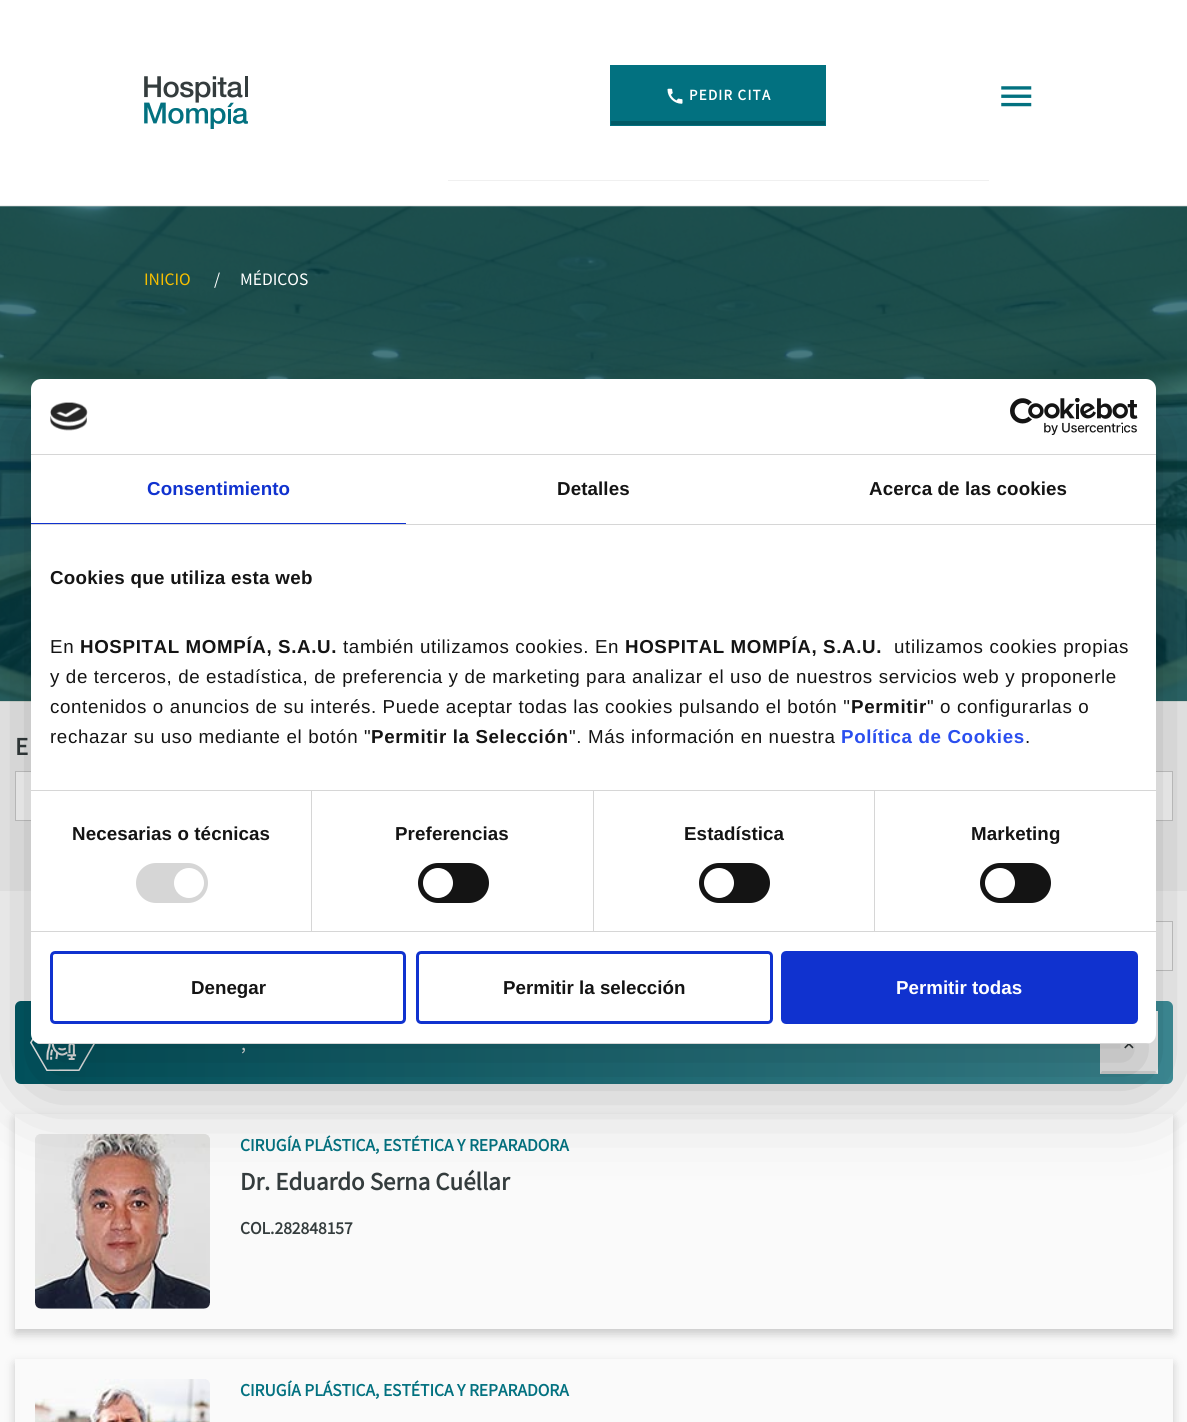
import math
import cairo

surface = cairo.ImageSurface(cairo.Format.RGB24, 1187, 1422)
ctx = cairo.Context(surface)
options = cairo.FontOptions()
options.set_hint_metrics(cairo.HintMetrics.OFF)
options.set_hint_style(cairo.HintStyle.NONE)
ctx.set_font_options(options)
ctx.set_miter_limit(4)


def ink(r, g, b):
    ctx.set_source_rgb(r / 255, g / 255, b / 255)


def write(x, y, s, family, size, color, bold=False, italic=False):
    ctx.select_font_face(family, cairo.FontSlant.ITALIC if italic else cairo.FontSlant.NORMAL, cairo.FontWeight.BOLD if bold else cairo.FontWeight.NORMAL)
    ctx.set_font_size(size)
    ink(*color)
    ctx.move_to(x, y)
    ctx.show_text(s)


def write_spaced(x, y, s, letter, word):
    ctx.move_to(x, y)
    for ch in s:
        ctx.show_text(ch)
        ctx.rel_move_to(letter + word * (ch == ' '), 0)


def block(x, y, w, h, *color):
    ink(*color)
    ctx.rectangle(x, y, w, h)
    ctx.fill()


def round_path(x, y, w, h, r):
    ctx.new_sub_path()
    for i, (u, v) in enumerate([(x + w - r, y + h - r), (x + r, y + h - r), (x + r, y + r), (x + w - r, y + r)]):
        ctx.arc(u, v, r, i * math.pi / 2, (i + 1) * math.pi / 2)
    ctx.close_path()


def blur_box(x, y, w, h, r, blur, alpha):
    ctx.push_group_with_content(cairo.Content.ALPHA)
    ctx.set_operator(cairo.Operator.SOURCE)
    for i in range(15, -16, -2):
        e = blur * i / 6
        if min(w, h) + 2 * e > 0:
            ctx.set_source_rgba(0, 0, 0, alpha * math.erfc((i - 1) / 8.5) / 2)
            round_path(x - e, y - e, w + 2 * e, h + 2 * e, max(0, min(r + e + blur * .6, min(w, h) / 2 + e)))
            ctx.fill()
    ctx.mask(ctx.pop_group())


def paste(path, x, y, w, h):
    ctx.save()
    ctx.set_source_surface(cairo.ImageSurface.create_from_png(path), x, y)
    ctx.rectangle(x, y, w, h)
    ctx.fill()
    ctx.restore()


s1 = dict(family="Source Sans Pro", size=17.5, color=(246, 190, 0))
s2 = dict(family="Source Sans Pro", size=17.5, color=(255, 255, 255))
s3 = dict(family="Source Sans Pro", size=25, color=(52, 60, 61), bold=True)
s4 = dict(family="Source Sans Pro", size=20, color=(255, 255, 255))
s5 = dict(family="Source Sans Pro", size=17.5, color=(2, 113, 128), bold=True)
s6 = dict(family="Source Sans Pro", size=17.5, color=(52, 60, 61), bold=True)
s7 = dict(family="Liberation Sans", size=18.75, color=(20, 20, 20), bold=True)
s8 = dict(family="Liberation Sans", size=18.75, color=(255, 255, 255), bold=True)

ink(255, 255, 255)
ctx.paint()
block(0, 205, 1187, 1, 240, 240, 240)
paste("pic1.png", 144, 76, 104, 53)
block(448, 180, 541, 1, 240, 240, 240)
block(610, 65, 216, 61, 2, 113, 128)
block(611, 121, 214, 4, 1, 90, 102)
paste("pic2.png", 667, 88, 16, 16)
ctx.select_font_face("Source Sans Pro", cairo.FontSlant.NORMAL, cairo.FontWeight.BOLD)
ctx.set_font_size(15)
ink(255, 255, 255)
write_spaced(689, 100, "PEDIR CITA", 1.25, 0)
paste("pic3.png", 1001, 86, 31, 21)
block(0, 701, 1187, 190, 240, 240, 240)
paste("pic4.png", 0, 206, 1187, 496)
write(144, 285, "INICIO", **s1)
write(214, 285, "/", **s2)
write(240, 285, "MÉDICOS", **s2)
write(15, 755, "E", **s3)
ink(255, 255, 255)
ctx.rectangle(15.5, 771.5, 1157, 49)
ctx.fill_preserve()
ink(204, 204, 204)
ctx.set_line_width(1)
ctx.stroke()
block(0, 891, 1187, 531, 250, 250, 250)
block(1156, 922, 16, 48, 255, 255, 255)
ctx.rectangle(986.5, 921.5, 186, 49)
ink(204, 204, 204)
ctx.stroke()
gradient = cairo.LinearGradient(15, 1043, 1173, 1043)
gradient.add_color_stop_rgba(0, 0.004, 0.353, 0.4, 1)
gradient.add_color_stop_rgba(1, 0.255, 0.58, 0.624, 1)
ctx.set_source(gradient)
round_path(15, 1001, 1158, 83, 6)
ctx.fill()
paste("pic5.png", 30, 1038, 65, 33)
write(241, 1050, ",", **s4)
block(1100, 1011, 58, 63, 255, 255, 255)
ink(229, 229, 229)
ctx.new_path()
ctx.move_to(1158, 1074)
ctx.line_to(1100, 1074)
ctx.line_to(1102, 1071)
ctx.line_to(1155, 1071)
ctx.close_path()
ctx.fill()
paste("pic6.png", 1124, 1044, 10, 5)
ctx.save()
ctx.set_fill_rule(cairo.FillRule.EVEN_ODD)
ctx.new_path()
ctx.move_to(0, 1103)
ctx.line_to(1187, 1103)
ctx.line_to(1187, 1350)
ctx.line_to(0, 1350)
ctx.close_path()
ctx.move_to(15, 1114)
ctx.line_to(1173, 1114)
ctx.line_to(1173, 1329)
ctx.line_to(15, 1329)
ctx.close_path()
ctx.clip()
ink(0, 0, 0)
blur_box(15, 1119, 1158, 215, 0, 5, 0.2)
ctx.restore()
paste("pic7.png", 35, 1133, 175, 176)
write(240, 1151, "CIRUGÍA PLÁSTICA, ESTÉTICA Y REPARADORA", **s5)
write(240, 1190, "Dr. Eduardo Serna Cuéllar", **s3)
write(240, 1234, "COL.282848157", **s6)
ctx.save()
ctx.set_fill_rule(cairo.FillRule.EVEN_ODD)
ctx.new_path()
ctx.move_to(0, 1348)
ctx.line_to(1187, 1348)
ctx.line_to(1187, 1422)
ctx.line_to(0, 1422)
ctx.close_path()
ctx.move_to(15, 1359)
ctx.line_to(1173, 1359)
ctx.line_to(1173, 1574)
ctx.line_to(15, 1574)
ctx.close_path()
ctx.clip()
ink(0, 0, 0)
blur_box(15, 1364, 1158, 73, 0, 5, 0.2)
ctx.restore()
paste("pic8.png", 35, 1379, 175, 43)
write(240, 1396, "CIRUGÍA PLÁSTICA, ESTÉTICA Y REPARADORA", **s5)
ink(0, 0, 0)
blur_box(31, 419, 1125, 665, 10, 42.5, 0.3)
ink(255, 255, 255)
round_path(31, 379, 1125, 665, 10)
ctx.fill()
block(31, 454, 1125, 1, 214, 214, 214)
paste("pic9.png", 50, 402, 38, 29)
paste("pic10.png", 1010, 398, 128, 37)
block(31, 524, 1125, 1, 214, 214, 214)
block(31, 523, 375, 1, 16, 50, 207)
ctx.select_font_face("Liberation Sans", cairo.FontSlant.NORMAL, cairo.FontWeight.BOLD)
ctx.set_font_size(18.75)
write_spaced(147, 495, "Consentimiento", 0.1, 0)
ink(20, 20, 20)
write_spaced(557, 495, "Detalles", 0.1, 0)
write_spaced(869, 495, "Acerca de las cookies", 0.1, 0)
block(31, 790, 1125, 1, 214, 214, 214)
ink(20, 20, 20)
write_spaced(50, 584, "Cookies que utiliza esta web", 0.3, 0)
ctx.select_font_face("Liberation Sans")
write_spaced(50, 653, "En", 0.62, 0)
ctx.select_font_face("Liberation Sans", cairo.FontSlant.NORMAL, cairo.FontWeight.BOLD)
write_spaced(80, 653, "HOSPITAL MOMPÍA, S.A.U.", 0.62, 0)
ctx.select_font_face("Liberation Sans")
write_spaced(343, 653, "también utilizamos cookies. En", 0.62, 0)
ctx.select_font_face("Liberation Sans", cairo.FontSlant.NORMAL, cairo.FontWeight.BOLD)
write_spaced(625, 653, "HOSPITAL MOMPÍA, S.A.U.", 0.62, 0)
ctx.select_font_face("Liberation Sans")
write_spaced(894, 653, "utilizamos cookies propias", 0.62, 0)
write_spaced(50, 683, "y de terceros, de estadística, de preferencia y de marketing para analizar el uso de nuestros servicios web y proponerle", 0.62, 0)
write_spaced(50, 713, "contenidos o anuncios de su interés. Puede aceptar todas las cookies pulsando el botón \"", 0.62, 0)
ctx.select_font_face("Liberation Sans", cairo.FontSlant.NORMAL, cairo.FontWeight.BOLD)
write_spaced(851, 713, "Permitir", 0.62, 0)
ctx.select_font_face("Liberation Sans")
write_spaced(927, 713, "\" o configurarlas o", 0.62, 0)
write_spaced(50, 743, "rechazar su uso mediante el botón \"", 0.62, 0)
ctx.select_font_face("Liberation Sans", cairo.FontSlant.NORMAL, cairo.FontWeight.BOLD)
write_spaced(371, 743, "Permitir la Selección", 0.62, 0)
ctx.select_font_face("Liberation Sans")
write_spaced(569, 743, "\". Más información en nuestra", 0.62, 0)
ctx.select_font_face("Liberation Sans", cairo.FontSlant.NORMAL, cairo.FontWeight.BOLD)
ink(42, 78, 239)
write_spaced(841, 743, "Política de Cookies", 0.62, 0)
ctx.select_font_face("Liberation Sans")
ink(20, 20, 20)
write_spaced(1025, 743, ".", 0.62, 0)
block(31, 931, 1125, 1, 214, 214, 214)
block(311, 791, 1, 140, 214, 214, 214)
ctx.select_font_face("Liberation Sans", cairo.FontSlant.NORMAL, cairo.FontWeight.BOLD)
ink(20, 20, 20)
write_spaced(72, 840, "Necesarias o técnicas", 0.1, 0)
ink(214, 214, 214)
round_path(136, 863, 72, 40, 20)
ctx.fill()
ink(255, 255, 255)
ctx.arc(189, 883, 15, 0, 2 * math.pi)
ctx.fill()
block(593, 791, 1, 140, 214, 214, 214)
ink(20, 20, 20)
write_spaced(395, 840, "Preferencias", 0.1, 0)
round_path(418, 863, 71, 40, 20)
ctx.fill()
ink(255, 255, 255)
ctx.arc(438, 883, 15, 0, 2 * math.pi)
ctx.fill()
block(874, 791, 1, 140, 214, 214, 214)
ink(20, 20, 20)
write_spaced(684, 840, "Estadística", 0.1, 0)
round_path(699, 863, 71, 40, 20)
ctx.fill()
ink(255, 255, 255)
ctx.arc(719, 883, 15, 0, 2 * math.pi)
ctx.fill()
ink(20, 20, 20)
write_spaced(971, 840, "Marketing", 0.1, 0)
round_path(980, 863, 71, 40, 20)
ctx.fill()
ink(255, 255, 255)
ctx.arc(1000, 883, 15, 0, 2 * math.pi)
ctx.fill()
ctx.save()
round_path(31, 379, 1125, 665, 10)
ctx.clip()
block(31, 1043, 1125, 1, 214, 214, 214)
ctx.restore()
round_path(51.5, 952.5, 353, 70, 3.5)
ink(16, 50, 207)
ctx.set_line_width(3)
ctx.stroke()
write(191, 994, "Denegar", **s7)
round_path(417.5, 952.5, 354, 70, 3.5)
ink(16, 50, 207)
ctx.stroke()
write(503, 994, "Permitir la selección", **s7)
ink(16, 50, 207)
round_path(782.5, 952.5, 354, 70, 3.5)
ctx.fill_preserve()
ctx.stroke()
write(896, 994, "Permitir todas", **s8)
surface.write_to_png("screenshot.png")
